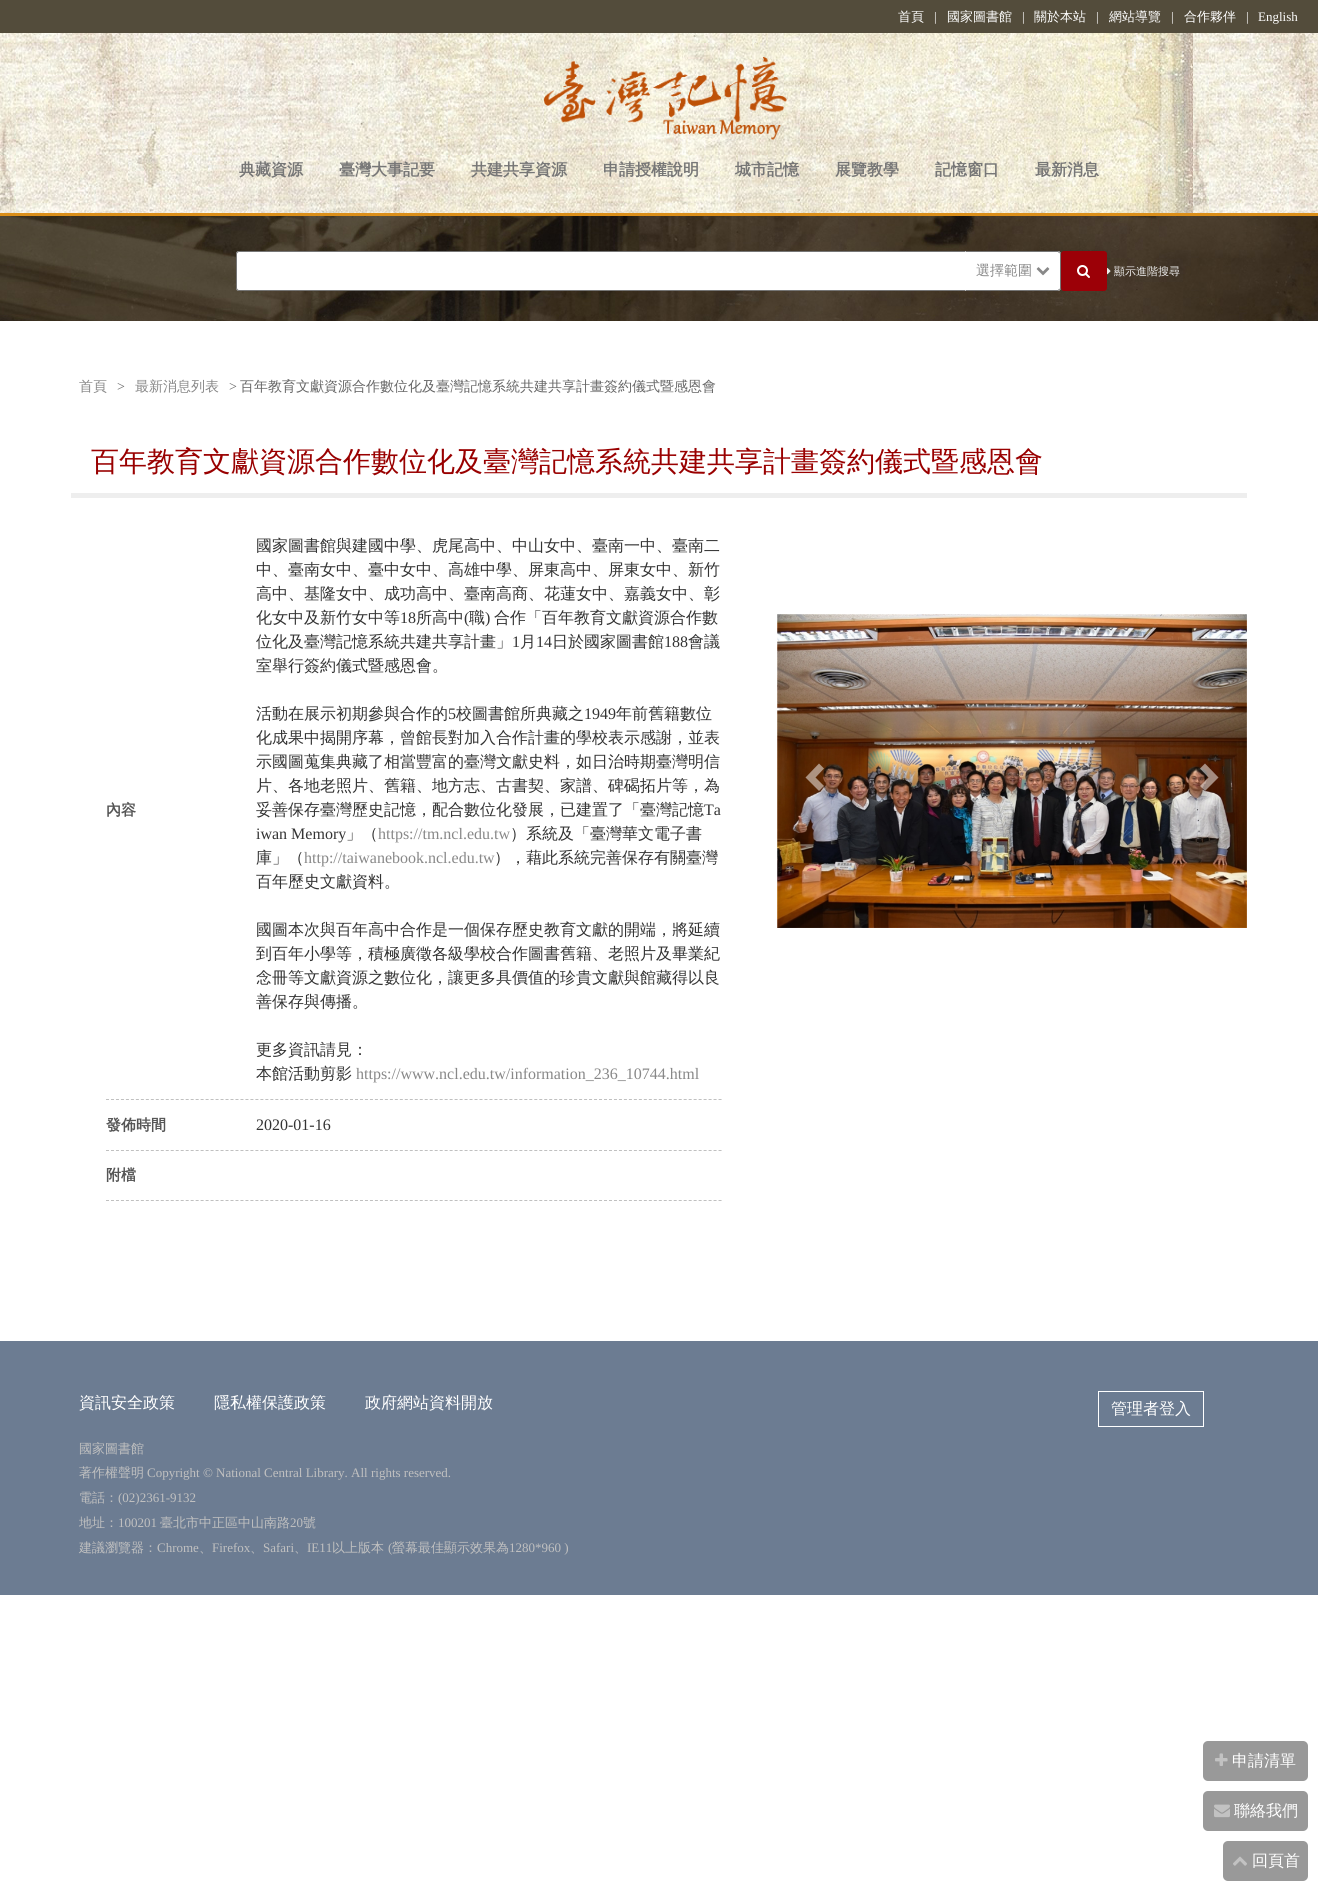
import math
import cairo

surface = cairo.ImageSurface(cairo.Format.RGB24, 1318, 1891)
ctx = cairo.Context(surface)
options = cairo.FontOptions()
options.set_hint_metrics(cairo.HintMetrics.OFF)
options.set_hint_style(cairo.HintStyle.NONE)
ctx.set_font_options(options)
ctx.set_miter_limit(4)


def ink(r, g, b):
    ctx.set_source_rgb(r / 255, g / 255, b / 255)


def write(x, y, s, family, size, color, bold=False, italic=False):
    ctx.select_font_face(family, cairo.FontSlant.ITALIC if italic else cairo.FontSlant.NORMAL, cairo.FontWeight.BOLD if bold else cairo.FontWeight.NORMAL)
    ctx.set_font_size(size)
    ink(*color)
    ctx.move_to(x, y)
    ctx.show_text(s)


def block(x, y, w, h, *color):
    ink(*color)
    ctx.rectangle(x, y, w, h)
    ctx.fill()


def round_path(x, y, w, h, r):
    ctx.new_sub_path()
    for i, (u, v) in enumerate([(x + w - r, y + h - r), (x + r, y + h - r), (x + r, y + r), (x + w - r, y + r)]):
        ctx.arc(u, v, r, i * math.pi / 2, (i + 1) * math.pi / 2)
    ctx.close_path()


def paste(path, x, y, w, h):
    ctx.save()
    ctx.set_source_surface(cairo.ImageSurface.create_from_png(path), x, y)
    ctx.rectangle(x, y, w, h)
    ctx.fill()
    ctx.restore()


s1 = dict(family="WenQuanYi Zen Hei Medium", size=13, color=(255, 255, 255))
s2 = dict(family="Liberation Serif", size=13, color=(255, 255, 255))
s3 = dict(family="WenQuanYi Zen Hei", size=16, color=(119, 119, 119), bold=True)
s4 = dict(family="WenQuanYi Zen Hei Medium", size=14, color=(136, 136, 136))
s5 = dict(family="WenQuanYi Zen Hei Medium", size=11, color=(238, 238, 238))
s6 = dict(family="Liberation Serif", size=14, color=(102, 102, 102))
s7 = dict(family="WenQuanYi Zen Hei Medium", size=14, color=(102, 102, 102))
s8 = dict(family="WenQuanYi Zen Hei Medium", size=28, color=(153, 0, 0))
s9 = dict(family="WenQuanYi Zen Hei", size=15, color=(85, 85, 85), bold=True)
s10 = dict(family="WenQuanYi Zen Hei Medium", size=16, color=(51, 51, 51))
s11 = dict(family="Liberation Serif", size=16, color=(51, 51, 51))
s12 = dict(family="Liberation Serif", size=16, color=(136, 136, 136))
s13 = dict(family="WenQuanYi Zen Hei Medium", size=16, color=(255, 255, 255))
s14 = dict(family="WenQuanYi Zen Hei Medium", size=13, color=(192, 192, 192))
s15 = dict(family="Liberation Serif", size=13, color=(192, 192, 192))

ink(255, 255, 255)
ctx.paint()
block(0, 0, 1318, 33, 83, 76, 59)
write(898, 21, "首頁", **s1)
write(934, 21, "|", **s2)
write(947, 21, "國家圖書館", **s1)
write(1022, 21, "|", **s2)
write(1034, 21, "關於本站", **s1)
write(1096, 21, "|", **s2)
write(1109, 21, "網站導覽", **s1)
write(1171, 21, "|", **s2)
write(1184, 21, "合作夥伴", **s1)
write(1246, 21, "|", **s2)
write(1258, 21, "English", **s2)
paste("pic1.png", 0, 33, 1318, 180)
paste("pic2.png", 544, 57, 243, 83)
write(239, 175, "典藏資源", **s3)
write(339, 175, "臺灣大事記要", **s3)
write(471, 175, "共建共享資源", **s3)
write(603, 175, "申請授權說明", **s3)
write(735, 175, "城市記憶", **s3)
write(835, 175, "展覽教學", **s3)
write(935, 175, "記憶窗口", **s3)
write(1035, 175, "最新消息", **s3)
paste("pic3.png", 0, 216, 1318, 105)
block(0, 213, 1318, 3, 219, 143, 26)
ink(255, 255, 255)
ctx.new_path()
ctx.move_to(239, 251)
ctx.line_to(965, 251)
ctx.line_to(965, 291)
ctx.line_to(239, 291)
ctx.curve_to(237.5, 291, 236, 289.5, 236, 288)
ctx.line_to(236, 254)
ctx.curve_to(236, 252.5, 237.5, 251, 239, 251)
ctx.close_path()
ctx.fill()
ink(118, 118, 118)
ctx.set_fill_rule(cairo.FillRule.EVEN_ODD)
ctx.new_path()
ctx.move_to(239, 251)
ctx.line_to(965, 251)
ctx.line_to(965, 291)
ctx.line_to(239, 291)
ctx.curve_to(237, 291, 236, 290, 236, 288)
ctx.line_to(236, 254)
ctx.curve_to(236, 252, 237, 251, 239, 251)
ctx.close_path()
ctx.move_to(239, 252)
ctx.line_to(965, 252)
ctx.line_to(965, 290)
ctx.line_to(239, 290)
ctx.curve_to(238, 290, 237, 289, 237, 288)
ctx.line_to(237, 254)
ctx.curve_to(237, 253, 238, 252, 239, 252)
ctx.close_path()
ctx.fill()
ink(255, 255, 255)
ctx.new_path()
ctx.move_to(965, 251)
ctx.line_to(1058, 251)
ctx.curve_to(1059.5, 251, 1061, 252.5, 1061, 254)
ctx.line_to(1061, 288)
ctx.curve_to(1061, 289.5, 1059.5, 291, 1058, 291)
ctx.line_to(965, 291)
ctx.close_path()
ctx.fill()
ink(118, 118, 118)
ctx.set_fill_rule(cairo.FillRule.WINDING)
ctx.new_path()
ctx.move_to(965, 251)
ctx.line_to(966, 252)
ctx.line_to(1058, 252)
ctx.line_to(1059, 253)
ctx.line_to(1060, 252)
ctx.line_to(1058, 251)
ctx.close_path()
ctx.fill()
ctx.new_path()
ctx.move_to(1061, 288)
ctx.line_to(1061, 254)
ctx.curve_to(1061, 253, 1061, 252, 1060, 252)
ctx.line_to(1059.5, 252.5)
ctx.line_to(1060, 254)
ctx.line_to(1060, 288)
ctx.line_to(1059.5, 289.5)
ctx.line_to(1060, 290)
ctx.curve_to(1061, 290, 1061, 289, 1061, 288)
ctx.close_path()
ctx.fill()
ctx.new_path()
ctx.move_to(1058, 291)
ctx.line_to(1060, 290)
ctx.line_to(1059, 289)
ctx.line_to(1058, 290)
ctx.line_to(966, 290)
ctx.line_to(965, 291)
ctx.close_path()
ctx.fill()
write(976, 275, "選擇範圍", **s4)
paste("pic4.png", 1036, 267, 14, 9)
ink(156, 0, 7)
round_path(1061, 251, 46, 40, 3)
ctx.fill()
paste("pic5.png", 1077, 265, 13, 13)
paste("pic6.png", 1107, 268, 4, 7)
write(1114, 275, "顯示進階搜尋", **s5)
write(79, 391, "首頁", **s4)
write(117, 391, ">", **s6)
write(135, 391, "最新消息列表", **s4)
write(229, 391, ">", **s6)
write(240, 391, "百年教育文獻資源合作數位化及臺灣記憶系統共建共享計畫簽約儀式暨感恩會", **s7)
block(71, 493, 1176, 5, 238, 238, 238)
write(91, 471, "百年教育文獻資源合作數位化及臺灣記憶系統共建共享計畫簽約儀式暨感恩會", **s8)
ctx.new_path()
ctx.move_to(106, 1099.5)
ctx.line_to(722, 1099.5)
ink(192, 192, 192)
ctx.set_line_width(1)
ctx.set_dash([3, 1.98])
ctx.stroke()
write(106, 815, "內容", **s9)
write(256, 551, "國家圖書館與建國中學、虎尾高中、中山女中、臺南一中、臺南二", **s10)
write(256, 575, "中、臺南女中、臺中女中、高雄中學、屏東高中、屏東女中、新竹", **s10)
write(256, 599, "高中、基隆女中、成功高中、臺南高商、花蓮女中、嘉義女中、彰", **s10)
write(256, 623, "化女中及新竹女中等", **s10)
write(400, 623, "18", **s11)
write(416, 623, "所高中", **s10)
write(464, 623, "(", **s11)
write(469, 623, "職", **s10)
write(485, 623, ")", **s11)
write(494, 623, "合作「百年教育文獻資源合作數", **s10)
write(256, 647, "位化及臺灣記憶系統共建共享計畫」", **s10)
write(512, 647, "1", **s11)
write(520, 647, "月", **s10)
write(536, 647, "14", **s11)
write(552, 647, "日於國家圖書館", **s10)
write(664, 647, "188", **s11)
write(688, 647, "會議", **s10)
write(256, 671, "室舉行簽約儀式暨感恩會。", **s10)
write(256, 719, "活動在展示初期參與合作的", **s10)
write(448, 719, "5", **s11)
write(456, 719, "校圖書館所典藏之", **s10)
write(584, 719, "1949", **s11)
write(616, 719, "年前舊籍數位", **s10)
write(256, 743, "化成果中揭開序幕，曾館長對加入合作計畫的學校表示感謝，並表", **s10)
write(256, 767, "示國圖蒐集典藏了相當豐富的臺灣文獻史料，如日治時期臺灣明信", **s10)
write(256, 791, "片、各地老照片、舊籍、地方志、古書契、家譜、碑碣拓片等，為", **s10)
write(256, 815, "妥善保存臺灣歷史記憶，配合數位化發展，已建置了「臺灣記憶", **s10)
write(704, 815, "Ta", **s11)
write(256, 839, "iwan Memory", **s11)
write(346, 839, "」（", **s10)
write(378, 839, "https://tm.ncl.edu.tw", **s12)
write(510, 839, "）系統及「臺灣華文電子書", **s10)
write(256, 863, "庫」（", **s10)
write(304, 863, "http://taiwanebook.ncl.edu.tw", **s12)
write(494, 863, "），藉此系統完善保存有關臺灣", **s10)
write(256, 887, "百年歷史文獻資料。", **s10)
write(256, 935, "國圖本次與百年高中合作是一個保存歷史教育文獻的開端，將延續", **s10)
write(256, 959, "到百年小學等，積極廣徵各級學校合作圖書舊籍、老照片及畢業紀", **s10)
write(256, 983, "念冊等文獻資源之數位化，讓更多具價值的珍貴文獻與館藏得以良", **s10)
write(256, 1007, "善保存與傳播。", **s10)
write(256, 1055, "更多資訊請見：", **s10)
write(256, 1079, "本館活動剪影", **s10)
write(356, 1079, "https://www.ncl.edu.tw/information_236_10744.html", **s12)
ctx.new_path()
ctx.move_to(106, 1150.5)
ctx.line_to(722, 1150.5)
ink(192, 192, 192)
ctx.stroke()
write(106, 1130, "發佈時間", **s9)
write(256, 1130, "2020-01-16", **s11)
ctx.new_path()
ctx.move_to(106, 1200.5)
ctx.line_to(722, 1200.5)
ink(192, 192, 192)
ctx.stroke()
write(106, 1180, "附檔", **s9)
paste("pic7.png", 777, 614, 470, 314)
ctx.set_source_rgba(1, 1, 1, 0.5)
ctx.new_path()
ctx.move_to(824, 768.5)
ctx.line_to(815.5, 777.5)
ctx.line_to(824, 786)
ctx.line_to(819, 791)
ctx.line_to(805.5, 777.5)
ctx.line_to(819, 763.5)
ctx.close_path()
ctx.fill()
ctx.new_path()
ctx.move_to(1218.5, 777.5)
ctx.line_to(1205, 791)
ctx.line_to(1200, 786)
ctx.line_to(1208.5, 777.5)
ctx.line_to(1200, 768.5)
ctx.line_to(1205, 763.5)
ctx.close_path()
ctx.fill()
block(0, 1341, 1318, 254, 108, 124, 146)
write(79, 1408, "資訊安全政策", **s13)
write(214, 1408, "隱私權保護政策", **s13)
write(365, 1408, "政府網站資料開放", **s13)
ctx.rectangle(1098.5, 1391.5, 105, 35)
ctx.set_dash([])
ctx.stroke()
write(1111, 1414, "管理者登入", **s13)
write(79, 1453, "國家圖書館", **s14)
write(79, 1477, "著作權聲明", **s14)
write(147, 1477, "Copyright © National Central Library. All rights reserved.", **s15)
write(79, 1502, "電話：", **s14)
write(118, 1502, "(02)2361-9132", **s15)
write(79, 1527, "地址：", **s14)
write(118, 1527, "100201", **s15)
write(160, 1527, "臺北市中正區中山南路", **s14)
write(290, 1527, "20", **s15)
write(303, 1527, "號", **s14)
write(79, 1552, "建議瀏覽器：", **s14)
write(157, 1552, "Chrome", **s15)
write(199, 1552, "、", **s14)
write(212, 1552, "Firefox", **s15)
write(250, 1552, "、", **s14)
write(263, 1552, "Safari", **s15)
write(294, 1552, "、", **s14)
write(307, 1552, "IE11", **s15)
write(332, 1552, "以上版本", **s14)
write(388, 1552, "(", **s15)
write(392, 1552, "螢幕最佳顯示效果為", **s14)
write(509, 1552, "1280*960 )", **s15)
ink(153, 153, 153)
round_path(1203, 1741, 105, 40, 5)
ctx.fill()
paste("pic8.png", 1215, 1753, 13, 13)
write(1232, 1766, "申請清單", **s13)
ink(153, 153, 153)
round_path(1203, 1791, 105, 40, 5)
ctx.fill()
paste("pic9.png", 1214, 1804, 16, 14)
write(1234, 1816, "聯絡我們", **s13)
ink(153, 153, 153)
round_path(1223, 1841, 85, 40, 5)
ctx.fill()
paste("pic10.png", 1233, 1856, 14, 10)
write(1252, 1866, "回頁首", **s13)
surface.write_to_png("screenshot.png")
